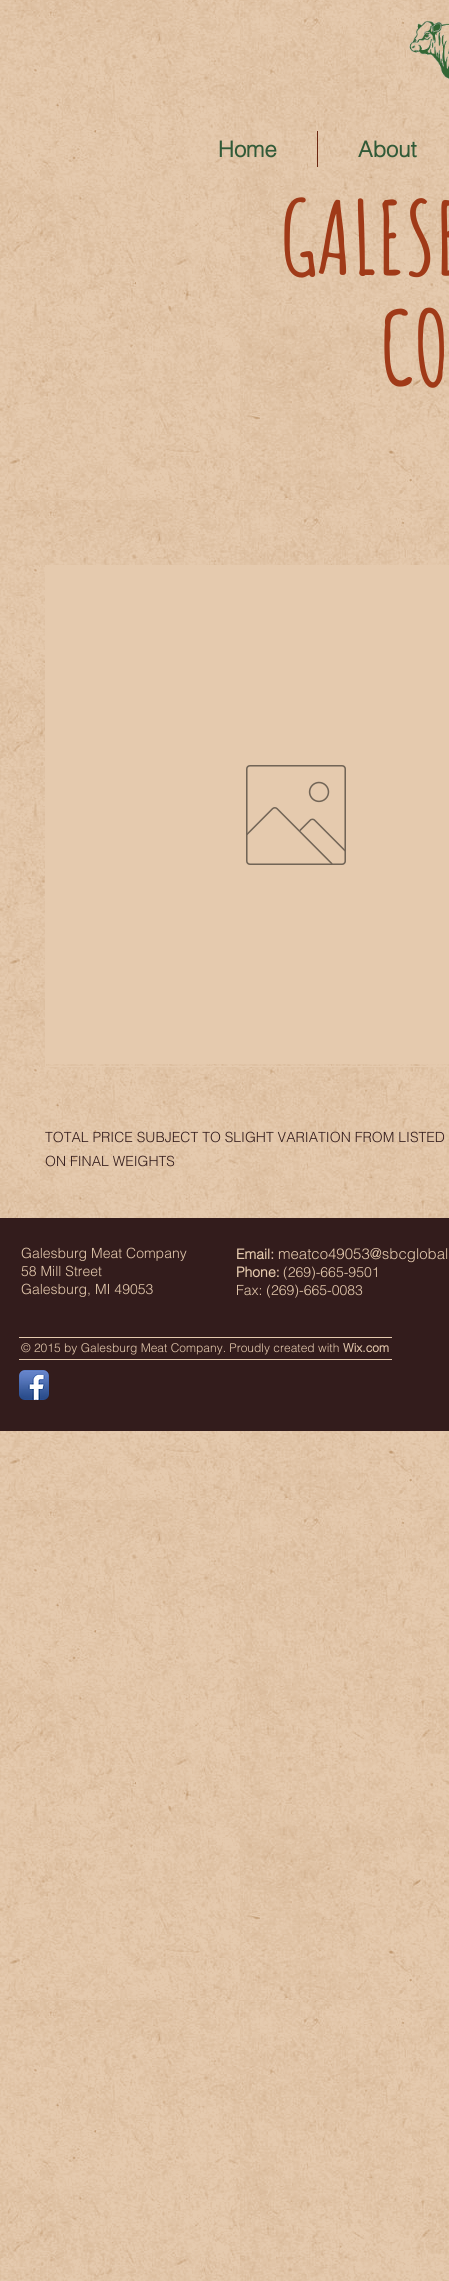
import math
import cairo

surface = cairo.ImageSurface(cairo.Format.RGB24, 449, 2281)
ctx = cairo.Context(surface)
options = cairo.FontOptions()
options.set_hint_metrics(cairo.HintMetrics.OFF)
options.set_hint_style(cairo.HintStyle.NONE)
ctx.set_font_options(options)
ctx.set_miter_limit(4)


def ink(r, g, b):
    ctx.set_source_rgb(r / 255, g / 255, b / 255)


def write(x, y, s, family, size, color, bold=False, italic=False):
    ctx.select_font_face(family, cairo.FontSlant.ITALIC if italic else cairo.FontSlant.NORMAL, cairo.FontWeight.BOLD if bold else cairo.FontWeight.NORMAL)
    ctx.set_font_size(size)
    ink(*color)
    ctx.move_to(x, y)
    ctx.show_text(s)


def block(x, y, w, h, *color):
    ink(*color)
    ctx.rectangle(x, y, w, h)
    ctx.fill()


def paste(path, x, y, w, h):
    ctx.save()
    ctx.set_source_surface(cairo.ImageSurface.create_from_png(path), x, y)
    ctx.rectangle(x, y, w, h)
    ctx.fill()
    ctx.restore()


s1 = dict(family="helvetica", size=22, color=(49, 90, 56), bold=True)
s2 = dict(family="Amatic SC", size=100, color=(160, 58, 24), bold=True)
s3 = dict(family="helvetica Light", size=14, color=(51, 28, 28))
s4 = dict(family="helvetica Light", size=14, color=(229, 202, 174))
s5 = dict(family="helvetica", size=14, color=(229, 202, 174), bold=True)
s6 = dict(family="helvetica Light", size=15, color=(229, 202, 174))
s7 = dict(family="helvetica Light", size=12, color=(229, 202, 174))
s8 = dict(family="helvetica", size=12, color=(229, 202, 174), bold=True)

ink(229, 202, 174)
ctx.paint()
paste("pic1.png", 0, 0, 449, 2281)
paste("pic2.png", 409, 21, 40, 58)
write(218, 157, "Home", **s1)
block(317, 131, 1, 36, 107, 38, 16)
write(358, 157, "About", **s1)
write(280, 275, "GALESB", **s2)
write(380, 385, "CO", **s2)
ctx.rectangle(45.5, 565.5, 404, 501)
ink(229, 202, 174)
ctx.set_line_width(1)
ctx.stroke()
block(46, 566, 403, 498, 229, 202, 174)
paste("pic3.png", 246, 765, 100, 100)
write(45, 1142, "TOTAL PRICE SUBJECT TO SLIGHT VARIATION FROM LISTED", **s3)
write(45, 1166, "ON FINAL WEIGHTS", **s3)
block(0, 1218, 449, 213, 51, 28, 28)
write(21, 1258, "Galesburg Meat Company", **s4)
write(21, 1276, "58 Mill Street", **s4)
write(21, 1294, "Galesburg, MI 49053", **s4)
write(236, 1259, "Email:", **s5)
write(278, 1259, "meatco49053@sbcglobal", **s6)
write(236, 1277, "Phone:", **s5)
write(283, 1277, "(269)-665-9501", **s4)
write(236, 1295, "Fax: (269)-665-0083", **s4)
block(19, 1337, 373, 1, 229, 202, 174)
write(21, 1352, "© 2015 by Galesburg Meat Company. Proudly created with", **s7)
write(343, 1352, "Wix.com", **s8)
block(19, 1359, 373, 1, 229, 202, 174)
paste("pic4.png", 19, 1370, 30, 30)
surface.write_to_png("screenshot.png")
